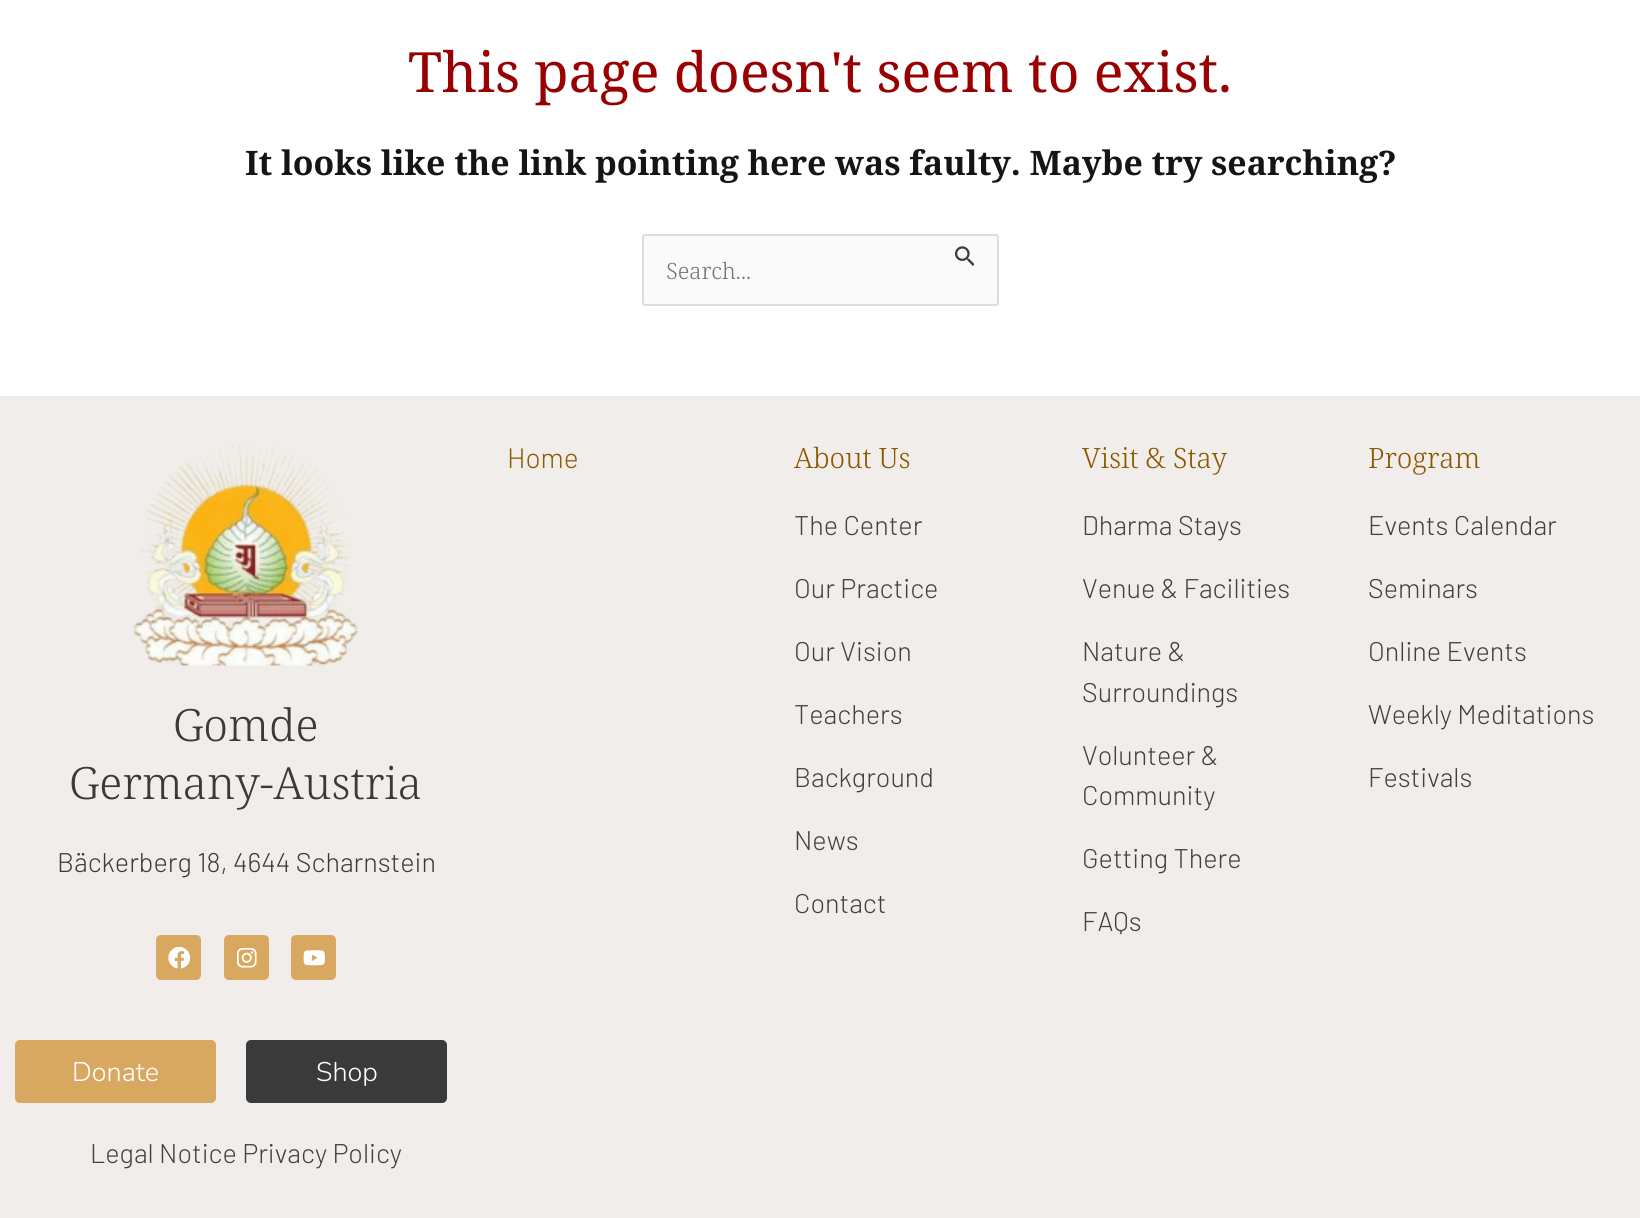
import math
import cairo

surface = cairo.ImageSurface(cairo.Format.RGB24, 1640, 1218)
ctx = cairo.Context(surface)
options = cairo.FontOptions()
options.set_hint_metrics(cairo.HintMetrics.OFF)
options.set_hint_style(cairo.HintStyle.NONE)
ctx.set_font_options(options)
ctx.set_miter_limit(4)


def ink(r, g, b):
    ctx.set_source_rgb(r / 255, g / 255, b / 255)


def write(x, y, s, family, size, color, bold=False, italic=False):
    ctx.select_font_face(family, cairo.FontSlant.ITALIC if italic else cairo.FontSlant.NORMAL, cairo.FontWeight.BOLD if bold else cairo.FontWeight.NORMAL)
    ctx.set_font_size(size)
    ink(*color)
    ctx.move_to(x, y)
    ctx.show_text(s)


def block(x, y, w, h, *color):
    ink(*color)
    ctx.rectangle(x, y, w, h)
    ctx.fill()


def round_path(x, y, w, h, r):
    ctx.new_sub_path()
    for i, (u, v) in enumerate([(x + w - r, y + h - r), (x + r, y + h - r), (x + r, y + r), (x + w - r, y + r)]):
        ctx.arc(u, v, r, i * math.pi / 2, (i + 1) * math.pi / 2)
    ctx.close_path()


def paste(path, x, y, w, h):
    ctx.save()
    ctx.set_source_surface(cairo.ImageSurface.create_from_png(path), x, y)
    ctx.rectangle(x, y, w, h)
    ctx.fill()
    ctx.restore()


s1 = dict(family="Noto Serif", size=55.5, color=(153, 0, 2))
s2 = dict(family="Noto Serif", size=33.75, color=(21, 21, 21), bold=True)
s3 = dict(family="Noto Serif Light", size=22.5, color=(117, 117, 117))
s4 = dict(family="Barlow Light", size=28, color=(140, 88, 0))
s5 = dict(family="Noto Serif Light", size=28, color=(140, 88, 0))
s6 = dict(family="Barlow Light", size=27, color=(64, 64, 64))
s7 = dict(family="Noto Serif Light", size=44.5, color=(58, 58, 58))
s8 = dict(family="Barlow Light", size=27, color=(58, 58, 58))
s9 = dict(family="Nunito Light", size=27, color=(255, 255, 255))

ink(255, 255, 255)
ctx.paint()
write(408, 92, "This page doesn't seem to exist.", **s1)
write(245, 175, "It looks like the link pointing here was faulty. Maybe try searching?", **s2)
ink(250, 250, 250)
round_path(643, 235, 355, 70, 2)
ctx.fill_preserve()
ink(221, 221, 221)
ctx.stroke()
paste("pic1.png", 955, 246, 19, 20)
write(666, 279, "Search...", **s3)
block(0, 396, 1640, 822, 241, 237, 234)
write(507, 468, "Home", **s4)
write(794, 468, "About Us", **s5)
write(794, 535, "The Center", **s6)
write(794, 598, "Our Practice", **s6)
write(794, 661, "Our Vision", **s6)
write(794, 724, "Teachers", **s6)
write(794, 787, "Background", **s6)
write(794, 850, "News", **s6)
write(794, 913, "Contact", **s6)
write(1082, 468, "Visit & Stay", **s5)
write(1082, 535, "Dharma Stays", **s6)
write(1082, 598, "Venue & Facilities", **s6)
write(1082, 661, "Nature &", **s6)
write(1082, 702, "Surroundings", **s6)
write(1082, 765, "Volunteer &", **s6)
write(1082, 805, "Community", **s6)
write(1082, 868, "Getting There", **s6)
write(1082, 931, "FAQs", **s6)
write(1368, 468, "Program", **s5)
write(1368, 535, "Events Calendar", **s6)
write(1368, 598, "Seminars", **s6)
write(1368, 661, "Online Events", **s6)
write(1368, 724, "Weekly Meditations", **s6)
write(1368, 787, "Festivals", **s6)
paste("pic2.png", 133, 444, 226, 222)
write(173, 741, "Gomde", **s7)
write(69, 799, "Germany-Austria", **s7)
write(57, 872, "Bäckerberg 18, 4644 Scharnstein", **s8)
ink(216, 168, 97)
round_path(156, 935, 45, 45, 5)
ctx.fill()
paste("pic3.png", 168, 947, 23, 22)
round_path(224, 935, 45, 45, 5)
ctx.fill()
paste("pic4.png", 236, 948, 21, 20)
round_path(291, 935, 45, 45, 5)
ctx.fill()
paste("pic5.png", 303, 950, 22, 16)
round_path(15, 1040, 201, 63, 5)
ctx.fill()
write(72, 1081, "Donate", **s9)
ink(58, 58, 58)
round_path(246, 1040, 201, 63, 5)
ctx.fill()
write(316, 1081, "Shop", **s9)
write(90, 1163, "Legal Notice Privacy Policy", **s6)
surface.write_to_png("screenshot.png")
